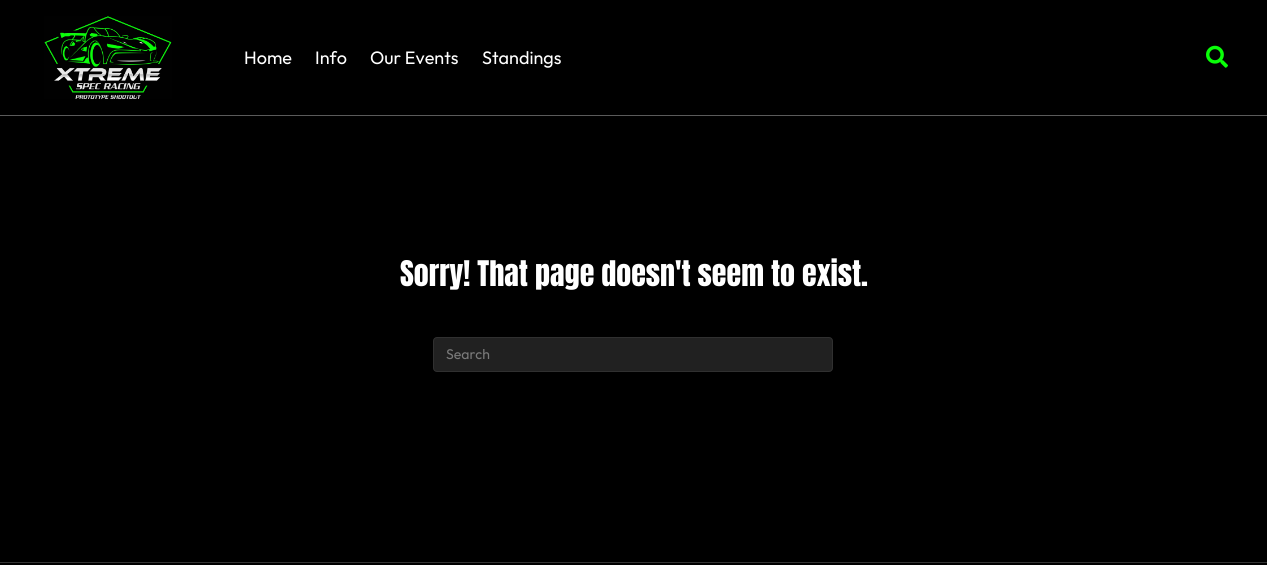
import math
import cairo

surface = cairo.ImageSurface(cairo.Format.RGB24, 1267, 565)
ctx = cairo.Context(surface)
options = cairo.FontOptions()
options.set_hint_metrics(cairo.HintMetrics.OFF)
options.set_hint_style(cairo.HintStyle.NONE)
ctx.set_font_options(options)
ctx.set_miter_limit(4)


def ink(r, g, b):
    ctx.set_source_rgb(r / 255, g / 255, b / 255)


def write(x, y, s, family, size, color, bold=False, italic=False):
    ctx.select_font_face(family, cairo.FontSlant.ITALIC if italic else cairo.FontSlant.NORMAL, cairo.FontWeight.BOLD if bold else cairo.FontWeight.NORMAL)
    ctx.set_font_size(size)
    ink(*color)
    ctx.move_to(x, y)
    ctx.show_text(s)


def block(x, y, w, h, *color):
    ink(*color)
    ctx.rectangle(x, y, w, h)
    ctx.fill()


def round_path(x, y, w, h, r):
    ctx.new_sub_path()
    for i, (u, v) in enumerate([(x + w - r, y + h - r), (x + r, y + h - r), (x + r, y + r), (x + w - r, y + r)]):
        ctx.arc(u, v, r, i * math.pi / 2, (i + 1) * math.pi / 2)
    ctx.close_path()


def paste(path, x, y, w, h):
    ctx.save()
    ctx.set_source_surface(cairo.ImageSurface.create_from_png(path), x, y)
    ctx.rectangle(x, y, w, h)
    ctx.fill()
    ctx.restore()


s1 = dict(family="Outfit", size=18, color=(255, 255, 255))
s2 = dict(family="Anton", size=30, color=(255, 255, 255))
s3 = dict(family="Outfit", size=14, color=(122, 122, 122))

ink(0, 0, 0)
ctx.paint()
block(0, 115, 1267, 1, 91, 91, 91)
paste("pic1.png", 44, 16, 128, 83)
write(244, 64, "Home", **s1)
write(315, 64, "Info", **s1)
write(370, 64, "Our Events", **s1)
write(482, 64, "Standings", **s1)
paste("pic2.png", 1206, 45, 22, 23)
write(400, 286, "Sorry! That page doesn't seem to exist.", **s2)
ink(33, 33, 33)
round_path(433.5, 337.5, 399, 34, 3.5)
ctx.fill_preserve()
ink(48, 48, 48)
ctx.set_line_width(1)
ctx.stroke()
write(446, 359, "Search", **s3)
block(0, 562, 1267, 1, 51, 51, 51)
surface.write_to_png("screenshot.png")
